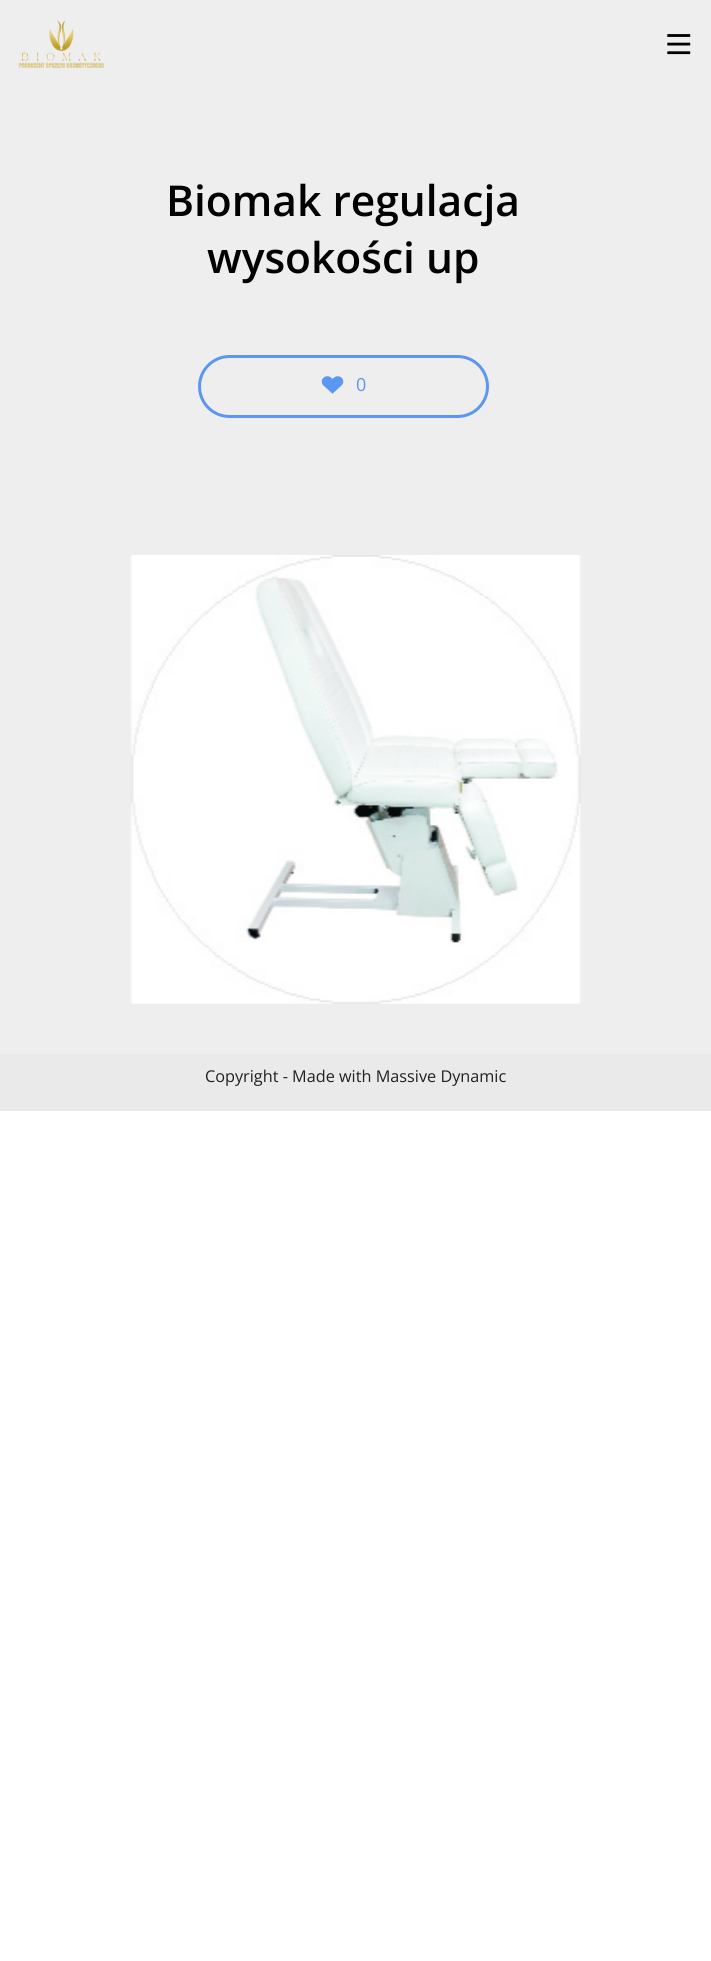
import math
import cairo

surface = cairo.ImageSurface(cairo.Format.RGB24, 711, 1961)
ctx = cairo.Context(surface)
options = cairo.FontOptions()
options.set_hint_metrics(cairo.HintMetrics.OFF)
options.set_hint_style(cairo.HintStyle.NONE)
ctx.set_font_options(options)
ctx.set_miter_limit(4)


def ink(r, g, b):
    ctx.set_source_rgb(r / 255, g / 255, b / 255)


def write(x, y, s, family, size, color, bold=False, italic=False):
    ctx.select_font_face(family, cairo.FontSlant.ITALIC if italic else cairo.FontSlant.NORMAL, cairo.FontWeight.BOLD if bold else cairo.FontWeight.NORMAL)
    ctx.set_font_size(size)
    ink(*color)
    ctx.move_to(x, y)
    ctx.show_text(s)


def block(x, y, w, h, *color):
    ink(*color)
    ctx.rectangle(x, y, w, h)
    ctx.fill()


def round_path(x, y, w, h, r):
    ctx.new_sub_path()
    for i, (u, v) in enumerate([(x + w - r, y + h - r), (x + r, y + h - r), (x + r, y + r), (x + w - r, y + r)]):
        ctx.arc(u, v, r, i * math.pi / 2, (i + 1) * math.pi / 2)
    ctx.close_path()


def paste(path, x, y, w, h):
    ctx.save()
    ctx.set_source_surface(cairo.ImageSurface.create_from_png(path), x, y)
    ctx.rectangle(x, y, w, h)
    ctx.fill()
    ctx.restore()


s1 = dict(family="Open Sans SemiBold", size=42.5, color=(0, 0, 0))
s2 = dict(family="Open Sans", size=18, color=(91, 151, 240))
s3 = dict(family="Open Sans", size=16.25, color=(33, 33, 33))

ink(255, 255, 255)
ctx.paint()
block(0, 0, 711, 1054, 238, 238, 238)
paste("pic1.png", 18, 19, 86, 50)
paste("pic2.png", 667, 34, 24, 21)
write(166, 216, "Biomak regulacja", **s1)
write(207, 273, "wysokości up", **s1)
round_path(199.5, 356.5, 288, 60, 30)
ink(91, 151, 240)
ctx.set_line_width(3)
ctx.stroke()
paste("pic3.png", 321, 376, 23, 18)
write(356, 391, "0", **s2)
paste("pic4.png", 130, 555, 451, 449)
block(0, 1054, 711, 57, 234, 234, 234)
write(205, 1082, "Copyright - Made with Massive Dynamic", **s3)
surface.write_to_png("screenshot.png")
